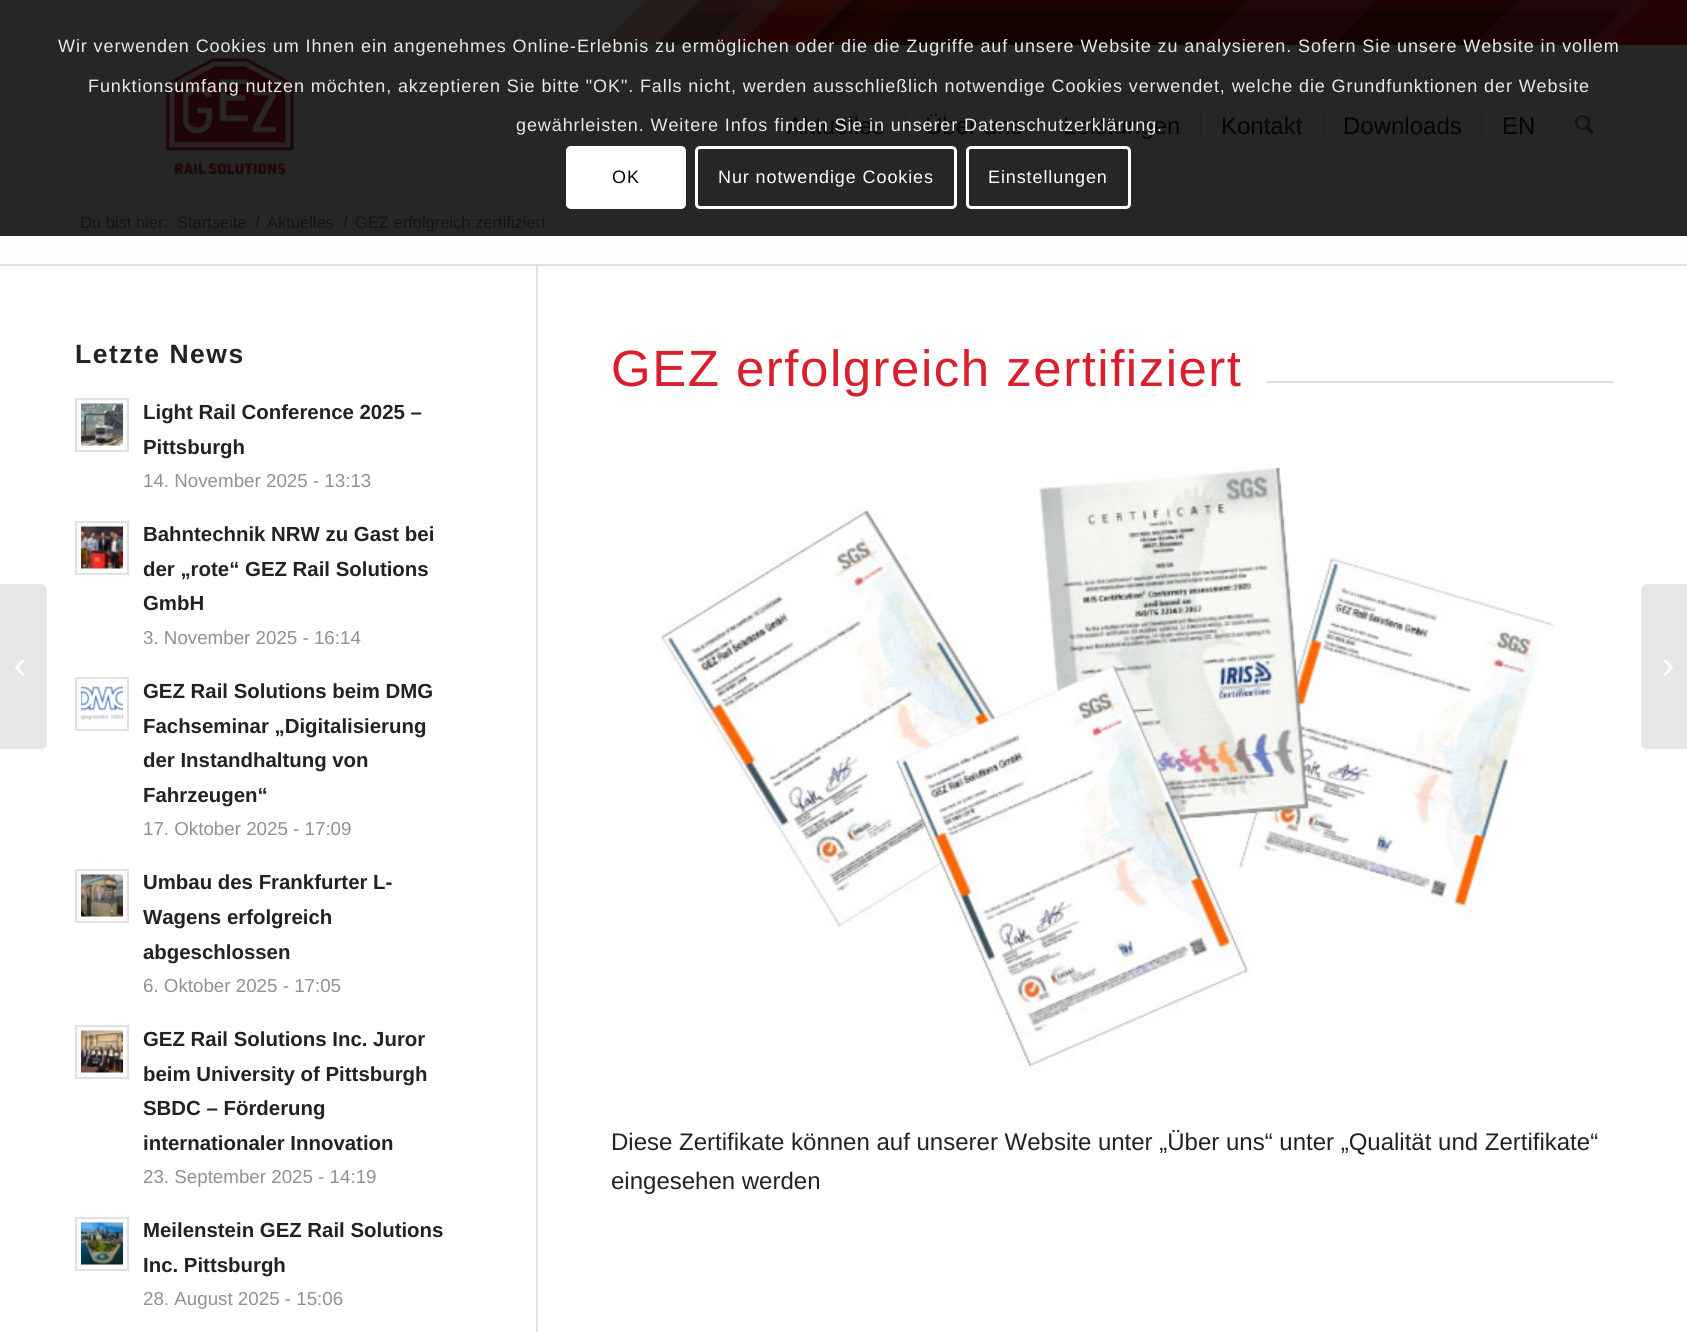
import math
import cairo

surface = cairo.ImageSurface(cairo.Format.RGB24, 1687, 1332)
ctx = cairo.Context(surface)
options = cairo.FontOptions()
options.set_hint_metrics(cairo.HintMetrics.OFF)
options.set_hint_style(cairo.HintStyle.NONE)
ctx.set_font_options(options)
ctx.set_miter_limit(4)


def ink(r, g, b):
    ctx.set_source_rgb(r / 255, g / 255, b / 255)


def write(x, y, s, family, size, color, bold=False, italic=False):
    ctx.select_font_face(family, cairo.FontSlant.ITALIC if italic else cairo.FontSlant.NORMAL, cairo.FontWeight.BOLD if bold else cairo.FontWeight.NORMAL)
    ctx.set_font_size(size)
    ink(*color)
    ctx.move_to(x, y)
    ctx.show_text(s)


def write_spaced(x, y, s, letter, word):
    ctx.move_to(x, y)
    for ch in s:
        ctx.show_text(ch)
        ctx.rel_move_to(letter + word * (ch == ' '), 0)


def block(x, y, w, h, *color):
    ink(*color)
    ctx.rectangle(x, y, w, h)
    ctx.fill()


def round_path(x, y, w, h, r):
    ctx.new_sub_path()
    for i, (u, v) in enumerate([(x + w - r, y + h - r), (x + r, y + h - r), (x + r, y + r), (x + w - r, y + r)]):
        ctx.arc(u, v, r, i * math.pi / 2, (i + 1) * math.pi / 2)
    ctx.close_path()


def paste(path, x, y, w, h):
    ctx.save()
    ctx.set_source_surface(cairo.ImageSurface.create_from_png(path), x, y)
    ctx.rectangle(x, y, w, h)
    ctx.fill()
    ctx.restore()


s1 = dict(family="Liberation Sans", size=24, color=(5, 5, 5))
s2 = dict(family="Liberation Sans", size=16.5, color=(20, 20, 20))
s3 = dict(family="Liberation Sans", size=20.4, color=(34, 34, 34), bold=True)
s4 = dict(family="Liberation Sans", size=18.75, color=(145, 145, 145))
s5 = dict(family="Liberation Sans", size=24, color=(34, 34, 34))

ink(255, 255, 255)
ctx.paint()
block(0, 0, 1687, 236, 38, 38, 38)
paste("pic1.png", 594, 0, 1093, 45)
ctx.select_font_face("Liberation Sans")
ctx.set_font_size(18)
ink(233, 233, 233)
write_spaced(58, 52, "Wir verwenden Cookies um Ihnen ein angenehmes Online-Erlebnis zu ermöglichen oder die die Zugriffe auf unsere Website zu analysieren. Sofern Sie unsere Website in vollem", 0.9, 0)
paste("pic2.png", 165, 58, 129, 116)
write_spaced(88, 92, "Funktionsumfang nutzen möchten, akzeptieren Sie bitte \"OK\". Falls nicht, werden ausschließlich notwendige Cookies verwendet, welche die Grundfunktionen der Website", 0.9, 0)
write(787, 134, "Aktuelles", **s1)
write(925, 134, "Über uns", **s1)
block(905, 113, 2, 25, 34, 34, 34)
write(1063, 134, "Leistungen", **s1)
block(1043, 113, 2, 25, 34, 34, 34)
ctx.set_font_size(18)
ink(233, 233, 233)
write_spaced(516, 131, "gewährleisten. Weitere Infos finden Sie in unserer Datenschutzerklärung.", 0.9, 0)
ink(255, 255, 255)
round_path(566, 146, 120, 63, 5)
ctx.fill()
ink(5, 5, 5)
write_spaced(612, 183, "OK", 0.9, 0)
round_path(696.5, 147.5, 259, 60, 3.5)
ink(255, 255, 255)
ctx.set_line_width(3)
ctx.stroke()
write_spaced(718, 183, "Nur notwendige Cookies", 0.9, 0)
round_path(967.5, 147.5, 162, 60, 3.5)
ctx.stroke()
write_spaced(988, 183, "Einstellungen", 0.9, 0)
write(1221, 134, "Kontakt", **s1)
block(1200, 113, 2, 25, 34, 34, 34)
write(1343, 134, "Downloads", **s1)
block(1322, 113, 2, 25, 34, 34, 34)
write(1502, 134, "EN", **s1)
block(1481, 113, 2, 25, 34, 34, 34)
paste("pic3.png", 1575, 115, 18, 19)
ink(230, 230, 230)
ctx.new_path()
ctx.move_to(0, 584)
ctx.line_to(41, 584)
ctx.curve_to(44.5, 584, 47, 586.5, 47, 590)
ctx.line_to(47, 743)
ctx.curve_to(47, 746.5, 44.5, 749, 41, 749)
ctx.line_to(0, 749)
ctx.close_path()
ctx.fill()
paste("pic4.png", 15, 659, 9, 17)
block(0, 236, 1687, 28, 252, 252, 252)
write(80, 228, "Du bist hier:", **s2)
write(177, 228, "Startseite", **s2)
write(255, 228, "/", **s2)
write(267, 228, "Aktuelles", **s2)
write(343, 228, "/", **s2)
write(355, 228, "GEZ erfolgreich zertifiziert", **s2)
block(0, 264, 1687, 2, 225, 225, 225)
block(536, 266, 2, 1066, 225, 225, 225)
ctx.select_font_face("Liberation Sans", cairo.FontSlant.NORMAL, cairo.FontWeight.BOLD)
ctx.set_font_size(26.5)
ink(34, 34, 34)
write_spaced(75, 363, "Letzte News", 1.5, 0)
ink(252, 252, 252)
ctx.rectangle(76, 399, 52, 52)
ctx.fill_preserve()
ink(225, 225, 225)
ctx.set_line_width(2)
ctx.stroke()
paste("pic5.png", 81, 403, 42, 43)
write(143, 419, "Light Rail Conference 2025 –", **s3)
write(143, 454, "Pittsburgh", **s3)
write(143, 487, "14. November 2025 - 13:13", **s4)
ink(252, 252, 252)
ctx.rectangle(76, 522, 52, 52)
ctx.fill_preserve()
ink(225, 225, 225)
ctx.stroke()
paste("pic6.png", 81, 526, 42, 43)
write(143, 541, "Bahntechnik NRW zu Gast bei", **s3)
write(143, 576, "der „rote“ GEZ Rail Solutions", **s3)
write(143, 610, "GmbH", **s3)
write(143, 644, "3. November 2025 - 16:14", **s4)
ink(252, 252, 252)
ctx.rectangle(76, 678, 52, 52)
ctx.fill_preserve()
ink(225, 225, 225)
ctx.stroke()
paste("pic7.png", 81, 686, 42, 35)
write(143, 698, "GEZ Rail Solutions beim DMG", **s3)
write(143, 733, "Fachseminar „Digitalisierung", **s3)
write(143, 767, "der Instandhaltung von", **s3)
write(143, 802, "Fahrzeugen“", **s3)
write(143, 835, "17. Oktober 2025 - 17:09", **s4)
ink(252, 252, 252)
ctx.rectangle(76, 870, 52, 52)
ctx.fill_preserve()
ink(225, 225, 225)
ctx.stroke()
paste("pic8.png", 81, 874, 42, 43)
write(143, 889, "Umbau des Frankfurter L-", **s3)
write(143, 924, "Wagens erfolgreich", **s3)
write(143, 959, "abgeschlossen", **s3)
write(143, 992, "6. Oktober 2025 - 17:05", **s4)
ink(252, 252, 252)
ctx.rectangle(76, 1026, 52, 52)
ctx.fill_preserve()
ink(225, 225, 225)
ctx.stroke()
paste("pic9.png", 81, 1030, 42, 43)
write(143, 1046, "GEZ Rail Solutions Inc. Juror", **s3)
write(143, 1081, "beim University of Pittsburgh", **s3)
write(143, 1115, "SBDC – Förderung", **s3)
write(143, 1150, "internationaler Innovation", **s3)
write(143, 1183, "23. September 2025 - 14:19", **s4)
ink(252, 252, 252)
ctx.rectangle(76, 1218, 52, 52)
ctx.fill_preserve()
ink(225, 225, 225)
ctx.stroke()
paste("pic10.png", 81, 1222, 42, 43)
write(143, 1237, "Meilenstein GEZ Rail Solutions", **s3)
write(143, 1272, "Inc. Pittsburgh", **s3)
write(143, 1305, "28. August 2025 - 15:06", **s4)
ctx.set_font_size(51)
ink(217, 31, 43)
write_spaced(611, 386, "GEZ erfolgreich zertifiziert", 1.5, 0)
block(1266, 381, 347, 2, 222, 222, 222)
paste("pic11.png", 657, 467, 897, 605)
write(611, 1150, "Diese Zertifikate können auf unserer Website unter „Über uns“ unter „Qualität und Zertifikate“", **s5)
write(611, 1189, "eingesehen werden", **s5)
ink(230, 230, 230)
ctx.new_path()
ctx.move_to(1647, 584)
ctx.line_to(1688, 584)
ctx.line_to(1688, 749)
ctx.line_to(1647, 749)
ctx.curve_to(1643.5, 749, 1641, 746.5, 1641, 743)
ctx.line_to(1641, 590)
ctx.curve_to(1641, 586.5, 1643.5, 584, 1647, 584)
ctx.close_path()
ctx.fill()
paste("pic12.png", 1664, 659, 9, 17)
surface.write_to_png("screenshot.png")
